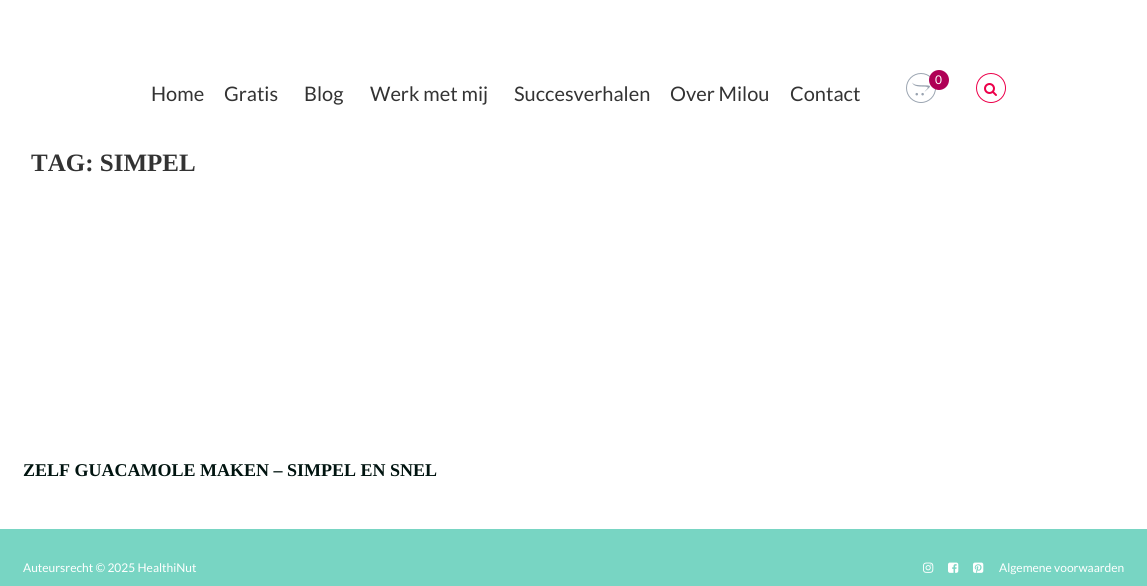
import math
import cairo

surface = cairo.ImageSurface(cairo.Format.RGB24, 1147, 586)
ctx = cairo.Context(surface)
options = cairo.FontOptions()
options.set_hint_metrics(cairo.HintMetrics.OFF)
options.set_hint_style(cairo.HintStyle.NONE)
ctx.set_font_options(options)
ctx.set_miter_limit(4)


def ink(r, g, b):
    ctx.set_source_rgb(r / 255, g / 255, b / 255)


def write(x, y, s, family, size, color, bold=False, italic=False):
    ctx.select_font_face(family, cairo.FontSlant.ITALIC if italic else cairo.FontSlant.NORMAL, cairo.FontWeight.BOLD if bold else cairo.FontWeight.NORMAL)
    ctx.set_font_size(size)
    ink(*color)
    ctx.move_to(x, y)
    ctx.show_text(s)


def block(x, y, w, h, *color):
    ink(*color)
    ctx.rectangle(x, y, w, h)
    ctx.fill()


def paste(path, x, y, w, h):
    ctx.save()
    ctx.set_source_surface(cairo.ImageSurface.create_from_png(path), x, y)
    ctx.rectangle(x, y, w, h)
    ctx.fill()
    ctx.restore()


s1 = dict(family="Lato", size=12, color=(255, 255, 255))
s2 = dict(family="Lato", size=20, color=(51, 51, 51))
s3 = dict(family="Liberation Serif", size=25, color=(51, 51, 51), bold=True)
s4 = dict(family="Liberation Serif", size=18, color=(0, 19, 15), bold=True)

ink(255, 255, 255)
ctx.paint()
ctx.arc(921, 88, 14.5, 0, 2 * math.pi)
ink(156, 166, 178)
ctx.set_line_width(1)
ctx.stroke()
paste("pic1.png", 912, 82, 18, 14)
ink(175, 0, 86)
ctx.arc(939, 80, 10, 0, 2 * math.pi)
ctx.fill()
write(935, 84, "0", **s1)
ctx.new_path()
ctx.arc(991, 88, 14.5, 0, 2 * math.pi)
ink(236, 0, 74)
ctx.stroke()
paste("pic2.png", 984, 83, 13, 13)
write(151, 101, "Home", **s2)
write(224, 101, "Gratis", **s2)
write(304, 101, "Blog", **s2)
write(370, 101, "Werk met mij", **s2)
write(514, 101, "Succesverhalen", **s2)
write(670, 101, "Over Milou", **s2)
write(790, 101, "Contact", **s2)
write(31, 171, "TAG: SIMPEL", **s3)
write(23, 476, "ZELF GUACAMOLE MAKEN – SIMPEL EN SNEL", **s4)
block(0, 529, 1147, 57, 120, 213, 195)
write(23, 572, "Auteursrecht © 2025 HealthiNut", **s1)
paste("pic3.png", 923, 562, 11, 11)
paste("pic4.png", 948, 562, 11, 11)
paste("pic5.png", 973, 562, 11, 11)
write(999, 572, "Algemene voorwaarden", **s1)
surface.write_to_png("screenshot.png")
